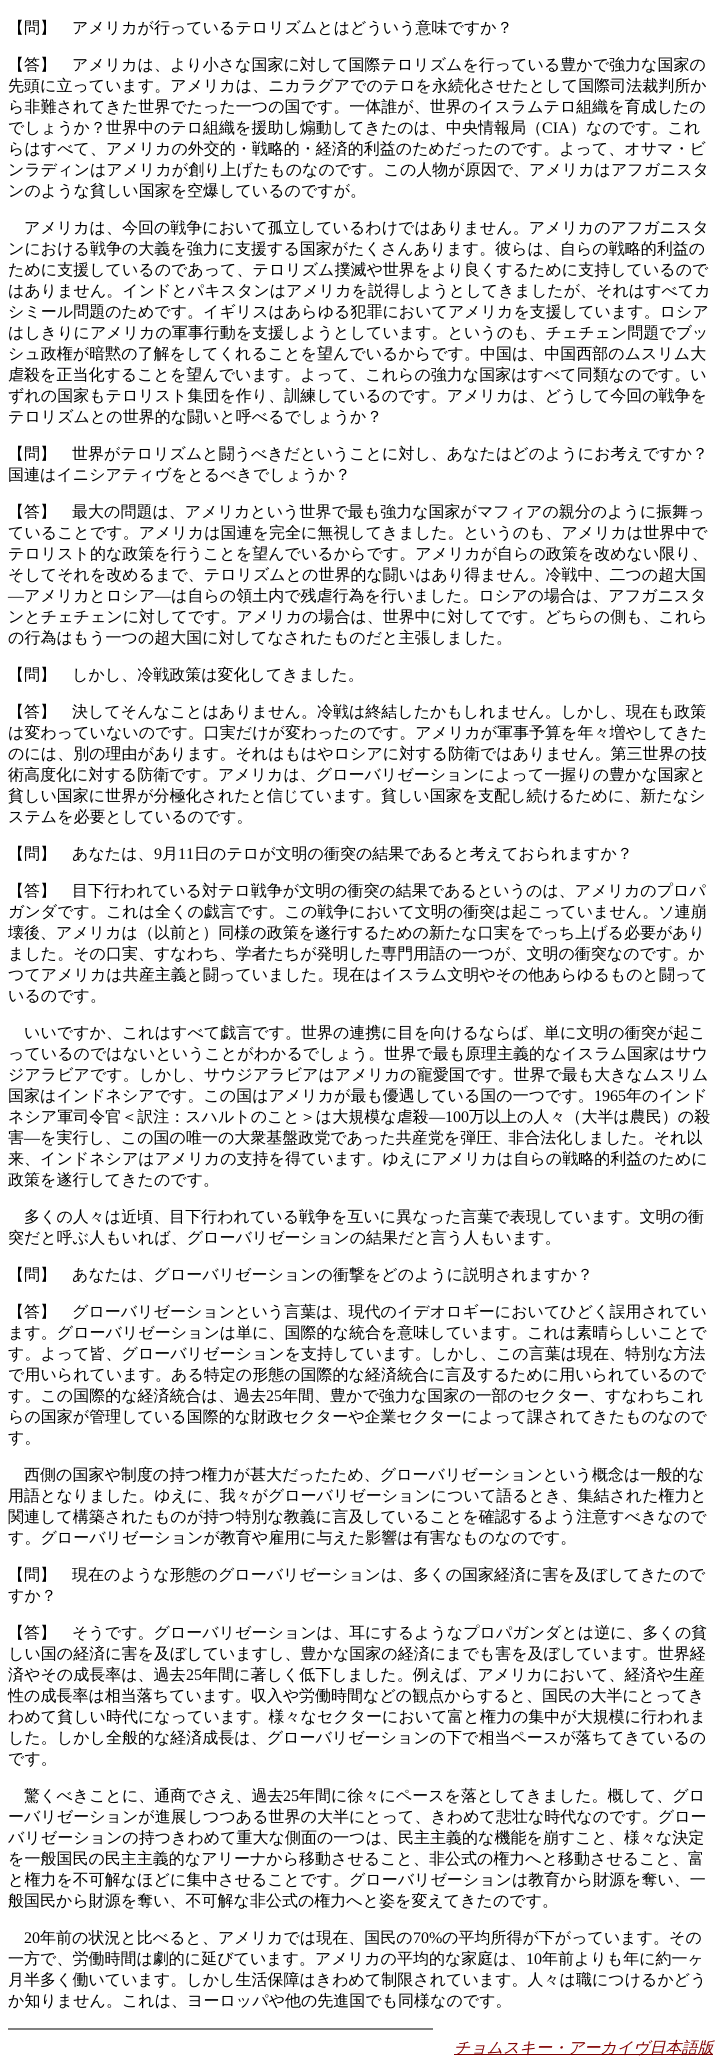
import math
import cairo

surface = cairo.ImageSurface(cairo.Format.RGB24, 721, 2067)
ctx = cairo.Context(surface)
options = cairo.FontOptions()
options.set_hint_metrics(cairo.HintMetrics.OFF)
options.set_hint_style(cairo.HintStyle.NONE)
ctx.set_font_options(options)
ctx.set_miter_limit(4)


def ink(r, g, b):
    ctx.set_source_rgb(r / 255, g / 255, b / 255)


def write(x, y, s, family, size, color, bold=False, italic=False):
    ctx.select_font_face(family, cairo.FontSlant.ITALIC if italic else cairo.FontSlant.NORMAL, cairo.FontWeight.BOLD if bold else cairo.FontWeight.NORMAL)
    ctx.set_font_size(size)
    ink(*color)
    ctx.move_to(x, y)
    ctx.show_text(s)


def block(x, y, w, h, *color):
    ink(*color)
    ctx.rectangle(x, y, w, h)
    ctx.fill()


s1 = dict(family="WenQuanYi Zen Hei Medium", size=16, color=(0, 0, 0))
s2 = dict(family="Liberation Serif", size=16, color=(0, 0, 0))
s3 = dict(family="WenQuanYi Zen Hei Medium", size=16, color=(128, 0, 0), italic=True)

ink(255, 255, 255)
ctx.paint()
write(8, 33, "【問】　アメリカが行っているテロリズムとはどういう意味ですか？", **s1)
write(8, 70, "【答】　アメリカは、より小さな国家に対して国際テロリズムを行っている豊かで強力な国家の", **s1)
write(8, 91, "先頭に立っています。アメリカは、ニカラグアでのテロを永続化させたとして国際司法裁判所か", **s1)
write(8, 112, "ら非難されてきた世界でたった一つの国です。一体誰が、世界のイスラムテロ組織を育成したの", **s1)
write(8, 133, "でしょうか？世界中のテロ組織を援助し煽動してきたのは、中央情報局（", **s1)
write(542, 133, "CIA", **s2)
write(570, 133, "）なのです。これ", **s1)
write(8, 154, "らはすべて、アメリカの外交的・戦略的・経済的利益のためだったのです。よって、オサマ・ビ", **s1)
write(8, 175, "ンラディンはアメリカが創り上げたものなのです。この人物が原因で、アメリカはアフガニスタ", **s1)
write(8, 196, "ンのような貧しい国家を空爆しているのですが。", **s1)
write(24, 233, "アメリカは、今回の戦争において孤立しているわけではありません。アメリカのアフガニスタ", **s1)
write(8, 254, "ンにおける戦争の大義を強力に支援する国家がたくさんあります。彼らは、自らの戦略的利益の", **s1)
write(8, 275, "ために支援しているのであって、テロリズム撲滅や世界をより良くするために支持しているので", **s1)
write(8, 296, "はありません。インドとパキスタンはアメリカを説得しようとしてきましたが、それはすべてカ", **s1)
write(8, 317, "シミール問題のためです。イギリスはあらゆる犯罪においてアメリカを支援しています。ロシア", **s1)
write(8, 338, "はしきりにアメリカの軍事行動を支援しようとしています。というのも、チェチェン問題でブッ", **s1)
write(8, 359, "シュ政権が暗黙の了解をしてくれることを望んでいるからです。中国は、中国西部のムスリム大", **s1)
write(8, 380, "虐殺を正当化することを望んでいます。よって、これらの強力な国家はすべて同類なのです。い", **s1)
write(8, 401, "ずれの国家もテロリスト集団を作り、訓練しているのです。アメリカは、どうして今回の戦争を", **s1)
write(8, 422, "テロリズムとの世界的な闘いと呼べるでしょうか？", **s1)
write(8, 459, "【問】　世界がテロリズムと闘うべきだということに対し、あなたはどのようにお考えですか？", **s1)
write(8, 480, "国連はイニシアティヴをとるべきでしょうか？", **s1)
write(8, 517, "【答】　最大の問題は、アメリカという世界で最も強力な国家がマフィアの親分のように振舞っ", **s1)
write(8, 538, "ていることです。アメリカは国連を完全に無視してきました。というのも、アメリカは世界中で", **s1)
write(8, 559, "テロリスト的な政策を行うことを望んでいるからです。アメリカが自らの政策を改めない限り、", **s1)
write(8, 580, "そしてそれを改めるまで、テロリズムとの世界的な闘いはあり得ません。冷戦中、二つの超大国", **s1)
write(8, 601, "―", **s2)
write(24, 601, "アメリカとロシア", **s1)
write(155, 601, "―", **s2)
write(171, 601, "は自らの領土内で残虐行為を行いました。ロシアの場合は、アフガニスタ", **s1)
write(8, 622, "ンとチェチェンに対してです。アメリカの場合は、世界中に対してです。どちらの側も、これら", **s1)
write(8, 643, "の行為はもう一つの超大国に対してなされたものだと主張しました。", **s1)
write(8, 680, "【問】　しかし、冷戦政策は変化してきました。", **s1)
write(8, 717, "【答】　決してそんなことはありません。冷戦は終結したかもしれません。しかし、現在も政策", **s1)
write(8, 738, "は変わっていないのです。口実だけが変わったのです。アメリカが軍事予算を年々増やしてきた", **s1)
write(8, 759, "のには、別の理由があります。それはもはやロシアに対する防衛ではありません。第三世界の技", **s1)
write(8, 780, "術高度化に対する防衛です。アメリカは、グローバリゼーションによって一握りの豊かな国家と", **s1)
write(8, 801, "貧しい国家に世界が分極化されたと信じています。貧しい国家を支配し続けるために、新たなシ", **s1)
write(8, 822, "ステムを必要としているのです。", **s1)
write(8, 859, "【問】　あなたは、", **s1)
write(154, 859, "9", **s2)
write(162, 859, "月", **s1)
write(178, 859, "11", **s2)
write(194, 859, "日のテロが文明の衝突の結果であると考えておられますか？", **s1)
write(8, 896, "【答】　目下行われている対テロ戦争が文明の衝突の結果であるというのは、アメリカのプロパ", **s1)
write(8, 917, "ガンダです。これは全くの戯言です。この戦争において文明の衝突は起こっていません。ソ連崩", **s1)
write(8, 938, "壊後、アメリカは（以前と）同様の政策を遂行するための新たな口実をでっち上げる必要があり", **s1)
write(8, 959, "ました。その口実、すなわち、学者たちが発明した専門用語の一つが、文明の衝突なのです。か", **s1)
write(8, 980, "つてアメリカは共産主義と闘っていました。現在はイスラム文明やその他あらゆるものと闘って", **s1)
write(8, 1001, "いるのです。", **s1)
write(24, 1038, "いいですか、これはすべて戯言です。世界の連携に目を向けるならば、単に文明の衝突が起こ", **s1)
write(8, 1059, "っているのではないということがわかるでしょう。世界で最も原理主義的なイスラム国家はサウ", **s1)
write(8, 1080, "ジアラビアです。しかし、サウジアラビアはアメリカの寵愛国です。世界で最も大きなムスリム", **s1)
write(8, 1101, "国家はインドネシアです。この国はアメリカが最も優遇している国の一つです。", **s1)
write(594, 1101, "1965", **s2)
write(626, 1101, "年のインド", **s1)
write(8, 1122, "ネシア軍司令官＜訳注：スハルトのこと＞は大規模な虐殺", **s1)
write(429, 1122, "―100", **s2)
write(469, 1122, "万以上の人々（大半は農民）の殺", **s1)
write(8, 1143, "害", **s1)
write(24, 1143, "―", **s2)
write(40, 1143, "を実行し、この国の唯一の大衆基盤政党であった共産党を弾圧、非合法化しました。それ以", **s1)
write(8, 1164, "来、インドネシアはアメリカの支持を得ています。ゆえにアメリカは自らの戦略的利益のために", **s1)
write(8, 1185, "政策を遂行してきたのです。", **s1)
write(24, 1222, "多くの人々は近頃、目下行われている戦争を互いに異なった言葉で表現しています。文明の衝", **s1)
write(8, 1243, "突だと呼ぶ人もいれば、グローバリゼーションの結果だと言う人もいます。", **s1)
write(8, 1280, "【問】　あなたは、グローバリゼーションの衝撃をどのように説明されますか？", **s1)
write(8, 1317, "【答】　グローバリゼーションという言葉は、現代のイデオロギーにおいてひどく誤用されてい", **s1)
write(8, 1338, "ます。グローバリゼーションは単に、国際的な統合を意味しています。これは素晴らしいことで", **s1)
write(8, 1359, "す。よって皆、グローバリゼーションを支持しています。しかし、この言葉は現在、特別な方法", **s1)
write(8, 1380, "で用いられています。ある特定の形態の国際的な経済統合に言及するために用いられているので", **s1)
write(8, 1401, "す。この国際的な経済統合は、過去", **s1)
write(266, 1401, "25", **s2)
write(282, 1401, "年間、豊かで強力な国家の一部のセクター、すなわちこれ", **s1)
write(8, 1422, "らの国家が管理している国際的な財政セクターや企業セクターによって課されてきたものなので", **s1)
write(8, 1443, "す。", **s1)
write(24, 1480, "西側の国家や制度の持つ権力が甚大だったため、グローバリゼーションという概念は一般的な", **s1)
write(8, 1501, "用語となりました。ゆえに、我々がグローバリゼーションについて語るとき、集結された権力と", **s1)
write(8, 1522, "関連して構築されたものが持つ特別な教義に言及していることを確認するよう注意すべきなので", **s1)
write(8, 1543, "す。グローバリゼーションが教育や雇用に与えた影響は有害なものなのです。", **s1)
write(8, 1580, "【問】　現在のような形態のグローバリゼーションは、多くの国家経済に害を及ぼしてきたので", **s1)
write(8, 1601, "すか？", **s1)
write(8, 1638, "【答】　そうです。グローバリゼーションは、耳にするようなプロパガンダとは逆に、多くの貧", **s1)
write(8, 1659, "しい国の経済に害を及ぼしていますし、豊かな国家の経済にまでも害を及ぼしています。世界経", **s1)
write(8, 1680, "済やその成長率は、過去", **s1)
write(186, 1680, "25", **s2)
write(202, 1680, "年間に著しく低下しました。例えば、アメリカにおいて、経済や生産", **s1)
write(8, 1701, "性の成長率は相当落ちています。収入や労働時間などの観点からすると、国民の大半にとってき", **s1)
write(8, 1722, "わめて貧しい時代になっています。様々なセクターにおいて富と権力の集中が大規模に行われま", **s1)
write(8, 1743, "した。しかし全般的な経済成長は、グローバリゼーションの下で相当ペースが落ちてきているの", **s1)
write(8, 1764, "です。", **s1)
write(24, 1801, "驚くべきことに、通商でさえ、過去", **s1)
write(283, 1801, "25", **s2)
write(299, 1801, "年間に徐々にペースを落としてきました。概して、グロ", **s1)
write(8, 1822, "ーバリゼーションが進展しつつある世界の大半にとって、きわめて悲壮な時代なのです。グロー", **s1)
write(8, 1843, "バリゼーションの持つきわめて重大な側面の一つは、民主主義的な機能を崩すこと、様々な決定", **s1)
write(8, 1864, "を一般国民の民主主義的なアリーナから移動させること、非公式の権力へと移動させること、富", **s1)
write(8, 1885, "と権力を不可解なほどに集中させることです。グローバリゼーションは教育から財源を奪い、一", **s1)
write(8, 1906, "般国民から財源を奪い、不可解な非公式の権力へと姿を変えてきたのです。", **s1)
write(24, 1943, "20", **s2)
write(40, 1943, "年前の状況と比べると、アメリカでは現在、国民の", **s1)
write(413, 1943, "70%", **s2)
write(442, 1943, "の平均所得が下がっています。その", **s1)
write(8, 1964, "一方で、労働時間は劇的に延びています。アメリカの平均的な家庭は、", **s1)
write(526, 1964, "10", **s2)
write(542, 1964, "年前よりも年に約一ヶ", **s1)
write(8, 1985, "月半多く働いています。しかし生活保障はきわめて制限されています。人々は職につけるかどう", **s1)
write(8, 2006, "か知りません。これは、ヨーロッパや他の先進国でも同様なのです。", **s1)
block(8, 2028, 425, 2, 128, 128, 128)
block(454, 2054, 259, 1, 128, 0, 0)
write(454, 2053, "チョムスキー・アーカイヴ日本語版", **s3)
surface.write_to_png("screenshot.png")
